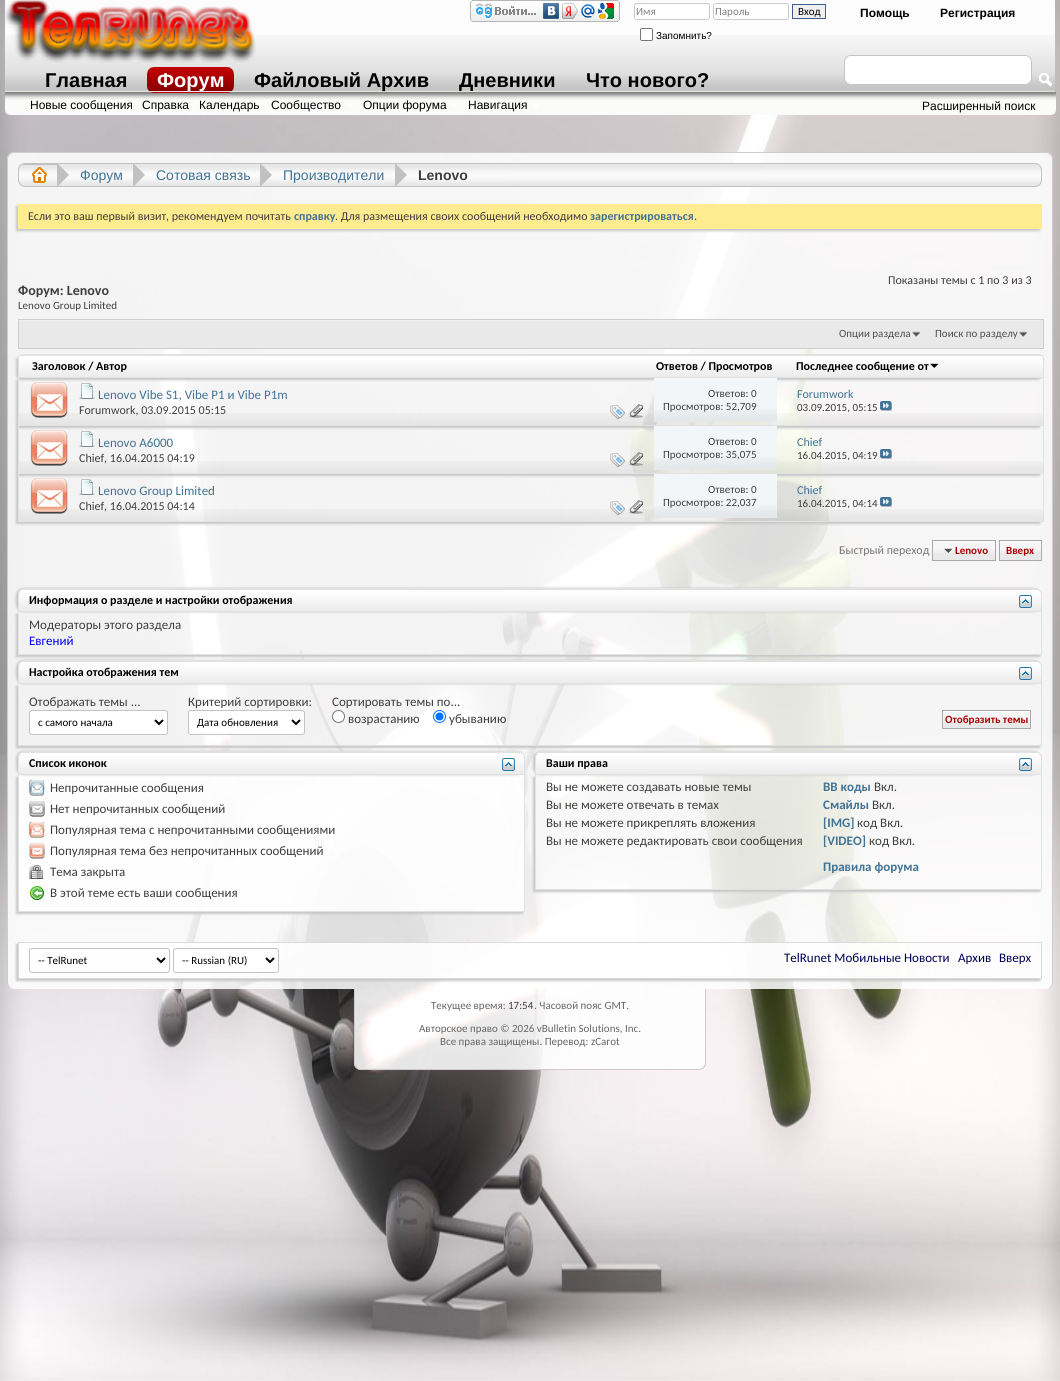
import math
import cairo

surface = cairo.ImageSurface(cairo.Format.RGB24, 1060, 1381)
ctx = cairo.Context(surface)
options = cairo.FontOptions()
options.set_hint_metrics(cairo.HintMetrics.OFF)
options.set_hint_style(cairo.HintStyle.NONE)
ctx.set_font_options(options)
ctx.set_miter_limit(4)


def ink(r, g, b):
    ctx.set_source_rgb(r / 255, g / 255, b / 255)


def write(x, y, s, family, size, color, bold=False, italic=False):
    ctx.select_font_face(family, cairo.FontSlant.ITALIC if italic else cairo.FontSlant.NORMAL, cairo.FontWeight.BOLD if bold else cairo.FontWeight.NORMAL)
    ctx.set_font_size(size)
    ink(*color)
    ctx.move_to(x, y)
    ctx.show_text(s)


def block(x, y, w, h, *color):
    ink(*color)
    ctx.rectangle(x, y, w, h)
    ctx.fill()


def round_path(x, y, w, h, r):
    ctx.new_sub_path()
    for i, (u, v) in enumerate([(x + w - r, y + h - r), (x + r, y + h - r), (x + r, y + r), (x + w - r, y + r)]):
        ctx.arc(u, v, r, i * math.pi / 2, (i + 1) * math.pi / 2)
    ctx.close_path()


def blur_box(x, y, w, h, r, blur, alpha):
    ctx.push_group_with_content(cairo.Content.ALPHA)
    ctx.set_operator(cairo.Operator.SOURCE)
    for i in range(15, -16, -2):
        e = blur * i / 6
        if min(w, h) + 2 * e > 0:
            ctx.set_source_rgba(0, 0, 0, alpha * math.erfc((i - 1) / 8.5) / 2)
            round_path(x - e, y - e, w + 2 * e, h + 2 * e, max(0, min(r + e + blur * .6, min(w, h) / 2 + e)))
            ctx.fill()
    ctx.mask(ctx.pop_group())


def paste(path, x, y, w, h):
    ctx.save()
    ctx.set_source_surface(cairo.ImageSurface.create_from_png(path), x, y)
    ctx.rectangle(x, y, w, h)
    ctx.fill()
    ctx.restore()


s1 = dict(family="Carlito", size=11, color=(130, 130, 130))
s2 = dict(family="Carlito", size=11, color=(0, 0, 0))
s3 = dict(family="Liberation Sans", size=10, color=(0, 0, 0))
s4 = dict(family="Liberation Sans", size=12, color=(0, 0, 0), bold=True)
s5 = dict(family="Liberation Sans", size=20, color=(0, 0, 0), bold=True)
s6 = dict(family="Liberation Sans", size=20, color=(255, 255, 255), bold=True)
s7 = dict(family="Liberation Sans", size=12, color=(0, 0, 0))
s8 = dict(family="Liberation Sans", size=14, color=(65, 115, 148))
s9 = dict(family="Liberation Sans", size=14, color=(62, 62, 62), bold=True)
s10 = dict(family="Carlito", size=12, color=(62, 62, 62))
s11 = dict(family="Carlito", size=12, color=(65, 115, 148), bold=True)
s12 = dict(family="Carlito", size=14, color=(62, 62, 62), bold=True)
s13 = dict(family="Carlito", size=11, color=(62, 62, 62))
s14 = dict(family="Carlito", size=11, color=(78, 78, 78))
s15 = dict(family="Carlito", size=12, color=(0, 0, 0), bold=True)
s16 = dict(family="Carlito", size=13, color=(65, 115, 148))
s17 = dict(family="Carlito", size=12, color=(65, 115, 148))
s18 = dict(family="Carlito", size=12, color=(119, 119, 119))
s19 = dict(family="Carlito", size=11, color=(173, 0, 2), bold=True)
s20 = dict(family="Carlito", size=13, color=(62, 62, 62))
s21 = dict(family="Carlito", size=13, color=(0, 0, 255))
s22 = dict(family="Carlito", size=13, color=(65, 115, 148), bold=True)
s23 = dict(family="Carlito", size=13, color=(0, 0, 86))
s24 = dict(family="Carlito", size=11, color=(102, 102, 102))

ink(255, 255, 255)
ctx.paint()
paste("pic1.png", 0, 0, 1060, 1381)
block(5, 0, 1050, 35, 252, 252, 252)
paste("pic2.png", 5, 35, 1050, 57)
paste("pic3.png", 5, 0, 251, 63)
paste("pic4.png", 470, 0, 150, 22)
ink(255, 255, 255)
round_path(634.5, 3.5, 75, 16, 2.5)
ctx.fill_preserve()
ink(204, 204, 204)
ctx.set_line_width(1)
ctx.stroke()
write(636, 15, "Имя", **s1)
ink(255, 255, 255)
round_path(713.5, 3.5, 75, 16, 2.5)
ctx.fill_preserve()
ink(204, 204, 204)
ctx.stroke()
write(715, 15, "Пароль", **s1)
ink(239, 239, 239)
ctx.rectangle(792.5, 4.5, 33, 14)
ctx.fill_preserve()
ink(65, 93, 141)
ctx.stroke()
write(798, 15, "Вход", **s2)
ink(255, 255, 255)
round_path(640.5, 28.5, 12, 12, 1.5)
ctx.fill_preserve()
ink(118, 118, 118)
ctx.stroke()
write(656, 39, "Запомнить?", **s3)
write(860, 17, "Помощь", **s4)
write(940, 17, "Регистрация", **s4)
write(254, 87, "Файловый Архив", **s5)
paste("pic6.png", 5, 92, 1051, 23)
paste("pic5.png", 147, 67, 87, 26)
write(157, 87, "Форум", **s6)
write(30, 109, "Новые сообщения", **s7)
write(142, 109, "Справка", **s7)
write(199, 109, "Календарь", **s7)
write(271, 109, "Сообщество", **s7)
paste("pic7.png", 347, 104, 5, 3)
write(363, 109, "Опции форума", **s7)
paste("pic7.png", 452, 104, 5, 3)
write(468, 109, "Навигация", **s7)
paste("pic7.png", 534, 104, 5, 3)
write(45, 87, "Главная", **s5)
write(459, 87, "Дневники", **s5)
write(586, 87, "Что нового?", **s5)
ink(255, 255, 255)
round_path(844.5, 55.5, 187, 29, 6.5)
ctx.fill_preserve()
ink(196, 196, 196)
ctx.stroke()
paste("pic8.png", 1039, 73, 13, 14)
write(922, 110, "Расширенный поиск", **s7)
paste("pic9.png", 7, 152, 1046, 837)
ink(204, 204, 204)
ctx.set_fill_rule(cairo.FillRule.EVEN_ODD)
ctx.new_path()
ctx.move_to(14, 152)
ctx.line_to(1046, 152)
ctx.curve_to(1050, 152, 1053, 155, 1053, 159)
ctx.line_to(1053, 982)
ctx.curve_to(1053, 986, 1050, 989, 1046, 989)
ctx.line_to(14, 989)
ctx.curve_to(10, 989, 7, 986, 7, 982)
ctx.line_to(7, 159)
ctx.curve_to(7, 155, 10, 152, 14, 152)
ctx.close_path()
ctx.move_to(14, 153)
ctx.line_to(1046, 153)
ctx.curve_to(1049, 153, 1052, 156, 1052, 159)
ctx.line_to(1052, 982)
ctx.curve_to(1052, 986, 1049, 989, 1046, 989)
ctx.line_to(14, 989)
ctx.curve_to(11, 989, 8, 986, 8, 982)
ctx.line_to(8, 159)
ctx.curve_to(8, 156, 11, 153, 14, 153)
ctx.close_path()
ctx.fill()
paste("pic10.png", 18, 163, 1024, 24)
round_path(18.5, 163.5, 1023, 23, 6.5)
ink(193, 193, 193)
ctx.stroke()
ctx.save()
ctx.set_fill_rule(cairo.FillRule.WINDING)
round_path(19, 164, 1022, 22, 6)
ctx.clip()
block(19, 164, 38, 1, 193, 193, 193)
ctx.restore()
paste("pic11.png", 32, 167, 15, 16)
ctx.set_fill_rule(cairo.FillRule.WINDING)
ctx.new_path()
ctx.move_to(58, 164)
ctx.line_to(69, 175)
ctx.line_to(58, 186)
ctx.line_to(57, 186)
ctx.line_to(57, 164)
ctx.close_path()
ctx.fill()
write(80, 180, "Форум", **s8)
ink(193, 193, 193)
ctx.new_path()
ctx.move_to(134, 164)
ctx.line_to(145, 175)
ctx.line_to(134, 186)
ctx.line_to(133, 186)
ctx.line_to(133, 164)
ctx.close_path()
ctx.fill()
write(156, 180, "Сотовая связь", **s8)
ink(193, 193, 193)
ctx.new_path()
ctx.move_to(261, 164)
ctx.line_to(272, 175)
ctx.line_to(261, 186)
ctx.line_to(260, 186)
ctx.line_to(260, 164)
ctx.close_path()
ctx.fill()
write(283, 180, "Производители", **s8)
ink(193, 193, 193)
ctx.new_path()
ctx.move_to(396, 164)
ctx.line_to(407, 175)
ctx.line_to(396, 186)
ctx.line_to(395, 186)
ctx.line_to(395, 164)
ctx.close_path()
ctx.fill()
write(418, 180, "Lenovo", **s9)
ink(200, 200, 200)
blur_box(16, 206, 1024, 25, 0, 1, 1)
block(18, 204, 1024, 25, 255, 235, 144)
write(28, 220, "Если это ваш первый визит, рекомендуем почитать", **s10)
write(294, 220, "справку", **s11)
write(335, 220, ". Для размещения своих сообщений необходимо", **s10)
write(590, 220, "зарегистрироваться", **s11)
write(694, 220, ".", **s10)
write(888, 284, "Показаны темы с 1 по 3 из 3", **s10)
write(18, 295, "Форум: Lenovo", **s12)
write(18, 309, "Lenovo Group Limited", **s13)
block(19, 321, 1024, 27, 233, 233, 233)
block(18, 320, 1026, 1, 237, 237, 237)
ctx.rectangle(18.5, 319.5, 1025, 29)
ink(206, 206, 206)
ctx.stroke()
paste("pic12.png", 912, 331, 9, 7)
write(839, 337, "Опции раздела", **s14)
paste("pic12.png", 1019, 331, 9, 7)
write(935, 337, "Поиск по разделу", **s14)
ink(200, 200, 200)
blur_box(16, 356, 1026, 24, 5, 1, 1)
paste("pic13.png", 18, 355, 1026, 22)
ctx.new_path()
ctx.move_to(23, 354.5)
ctx.line_to(1039, 354.5)
ctx.curve_to(1041.5, 354.5, 1043.5, 356.5, 1043.5, 359)
ctx.line_to(1043.5, 377.5)
ctx.line_to(18.5, 377.5)
ctx.line_to(18.5, 359)
ctx.curve_to(18.5, 356.5, 20.5, 354.5, 23, 354.5)
ctx.close_path()
ink(225, 225, 225)
ctx.stroke()
write(32, 370, "Заголовок / Автор", **s15)
write(656, 370, "Ответов / Просмотров", **s15)
write(796, 370, "Последнее сообщение от", **s15)
paste("pic14.png", 930, 363, 9, 5)
ctx.save()
ctx.set_fill_rule(cairo.FillRule.EVEN_ODD)
ctx.new_path()
ctx.move_to(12, 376)
ctx.line_to(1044, 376)
ctx.line_to(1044, 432)
ctx.line_to(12, 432)
ctx.close_path()
ctx.move_to(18, 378)
ctx.line_to(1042, 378)
ctx.line_to(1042, 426)
ctx.line_to(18, 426)
ctx.close_path()
ctx.clip()
ink(200, 200, 200)
blur_box(16, 380, 1024, 48, 0, 1, 1)
ctx.restore()
paste("pic15.png", 19, 413, 1024, 12)
block(1043, 378, 1, 48, 225, 225, 225)
block(18, 425, 1026, 1, 225, 225, 225)
block(18, 378, 1, 48, 225, 225, 225)
paste("pic16.png", 30, 382, 38, 36)
paste("pic17.png", 79, 383, 16, 16)
write(98, 399, "Lenovo Vibe S1, Vibe P1 и Vibe P1m", **s16)
write(79, 414, "Forumwork, 03.09.2015 05:15", **s10)
paste("pic18.png", 610, 405, 15, 14)
paste("pic19.png", 629, 404, 14, 14)
block(654, 378, 123, 44, 242, 246, 248)
paste("pic20.png", 654, 410, 123, 12)
write(708, 397, "Ответов: 0", **s13)
write(663, 410, "Просмотров: 52,709", **s13)
write(797, 398, "Forumwork", **s17)
write(797, 411, "03.09.2015, 05:15", **s13)
paste("pic21.png", 880, 401, 12, 10)
ctx.save()
ctx.set_fill_rule(cairo.FillRule.EVEN_ODD)
ctx.new_path()
ctx.move_to(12, 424)
ctx.line_to(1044, 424)
ctx.line_to(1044, 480)
ctx.line_to(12, 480)
ctx.close_path()
ctx.move_to(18, 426)
ctx.line_to(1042, 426)
ctx.line_to(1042, 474)
ctx.line_to(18, 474)
ctx.close_path()
ctx.clip()
ink(200, 200, 200)
blur_box(16, 428, 1024, 48, 0, 1, 1)
ctx.restore()
paste("pic22.png", 19, 461, 1024, 12)
block(1043, 426, 1, 48, 225, 225, 225)
block(18, 473, 1026, 1, 225, 225, 225)
block(18, 426, 1, 48, 225, 225, 225)
paste("pic23.png", 30, 430, 38, 36)
paste("pic24.png", 79, 431, 16, 16)
write(98, 447, "Lenovo A6000", **s16)
write(79, 462, "Chief, 16.04.2015 04:19", **s10)
paste("pic25.png", 610, 453, 15, 14)
paste("pic26.png", 629, 452, 14, 14)
block(654, 426, 123, 44, 242, 246, 248)
paste("pic20.png", 654, 458, 123, 12)
write(708, 445, "Ответов: 0", **s13)
write(663, 458, "Просмотров: 35,075", **s13)
write(797, 446, "Chief", **s17)
write(797, 459, "16.04.2015, 04:19", **s13)
paste("pic27.png", 880, 449, 12, 10)
ctx.save()
ctx.set_fill_rule(cairo.FillRule.EVEN_ODD)
ctx.new_path()
ctx.move_to(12, 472)
ctx.line_to(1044, 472)
ctx.line_to(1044, 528)
ctx.line_to(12, 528)
ctx.close_path()
ctx.move_to(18, 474)
ctx.line_to(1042, 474)
ctx.line_to(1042, 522)
ctx.line_to(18, 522)
ctx.close_path()
ctx.clip()
ink(200, 200, 200)
blur_box(16, 476, 1024, 48, 0, 1, 1)
ctx.restore()
paste("pic28.png", 19, 509, 1024, 12)
block(1043, 474, 1, 48, 225, 225, 225)
block(18, 521, 1026, 1, 225, 225, 225)
block(18, 474, 1, 48, 225, 225, 225)
paste("pic29.png", 30, 478, 38, 36)
paste("pic30.png", 79, 479, 16, 16)
write(98, 495, "Lenovo Group Limited", **s16)
write(79, 510, "Chief, 16.04.2015 04:14", **s10)
paste("pic31.png", 610, 501, 15, 14)
paste("pic32.png", 629, 500, 14, 14)
block(654, 474, 123, 44, 242, 246, 248)
paste("pic20.png", 654, 506, 123, 12)
write(708, 493, "Ответов: 0", **s13)
write(663, 506, "Просмотров: 22,037", **s13)
write(797, 494, "Chief", **s17)
write(797, 507, "16.04.2015, 04:14", **s13)
paste("pic33.png", 880, 497, 12, 10)
write(839, 554, "Быстрый переход", **s18)
block(933, 541, 62, 19, 233, 233, 233)
paste("pic34.png", 933, 541, 62, 12)
block(1000, 541, 41, 19, 233, 233, 233)
paste("pic35.png", 1000, 541, 41, 12)
ctx.rectangle(932.5, 540.5, 63, 20)
ink(168, 168, 168)
ctx.stroke()
paste("pic36.png", 944, 548, 9, 6)
write(955, 554, "Lenovo", **s19)
ctx.rectangle(999.5, 540.5, 42, 20)
ink(168, 168, 168)
ctx.stroke()
write(1006, 554, "Вверх", **s19)
ctx.save()
ctx.set_fill_rule(cairo.FillRule.EVEN_ODD)
ctx.new_path()
ctx.move_to(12, 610)
ctx.line_to(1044, 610)
ctx.line_to(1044, 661)
ctx.line_to(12, 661)
ctx.close_path()
ctx.move_to(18, 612)
ctx.line_to(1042, 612)
ctx.line_to(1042, 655)
ctx.line_to(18, 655)
ctx.close_path()
ctx.clip()
ink(200, 200, 200)
blur_box(16, 614, 1024, 43, 0, 1, 1)
ctx.restore()
block(1041, 612, 1, 43, 225, 225, 225)
block(18, 654, 1024, 1, 225, 225, 225)
block(18, 612, 1, 43, 225, 225, 225)
ink(200, 200, 200)
blur_box(16, 588, 1024, 24, 7, 1, 1)
ink(225, 225, 225)
ctx.new_path()
ctx.move_to(25, 588)
ctx.line_to(1035, 588)
ctx.curve_to(1039, 588, 1042, 591, 1042, 595)
ctx.line_to(1042, 612)
ctx.line_to(18, 612)
ctx.line_to(18, 595)
ctx.curve_to(18, 591, 21, 588, 25, 588)
ctx.close_path()
ctx.fill()
paste("pic37.png", 18, 590, 1024, 21)
ctx.new_path()
ctx.move_to(25, 588.5)
ctx.line_to(1035, 588.5)
ctx.curve_to(1038.5, 588.5, 1041.5, 591.5, 1041.5, 595)
ctx.line_to(1041.5, 611.5)
ctx.line_to(18.5, 611.5)
ctx.line_to(18.5, 595)
ctx.curve_to(18.5, 591.5, 21.5, 588.5, 25, 588.5)
ctx.close_path()
ctx.stroke()
write(29, 604, "Информация о разделе и настройки отображения", **s15)
paste("pic38.png", 1019, 595, 13, 13)
write(29, 629, "Модераторы этого раздела", **s20)
write(29, 645, "Евгений", **s21)
ctx.save()
ctx.set_fill_rule(cairo.FillRule.EVEN_ODD)
ctx.new_path()
ctx.move_to(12, 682)
ctx.line_to(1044, 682)
ctx.line_to(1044, 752)
ctx.line_to(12, 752)
ctx.close_path()
ctx.move_to(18, 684)
ctx.line_to(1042, 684)
ctx.line_to(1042, 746)
ctx.line_to(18, 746)
ctx.close_path()
ctx.clip()
ink(200, 200, 200)
blur_box(16, 686, 1024, 62, 0, 1, 1)
ctx.restore()
block(1041, 684, 1, 62, 225, 225, 225)
block(18, 745, 1024, 1, 225, 225, 225)
block(18, 684, 1, 62, 225, 225, 225)
ink(200, 200, 200)
blur_box(16, 660, 1024, 24, 7, 1, 1)
ink(225, 225, 225)
ctx.new_path()
ctx.move_to(25, 660)
ctx.line_to(1035, 660)
ctx.curve_to(1039, 660, 1042, 663, 1042, 667)
ctx.line_to(1042, 684)
ctx.line_to(18, 684)
ctx.line_to(18, 667)
ctx.curve_to(18, 663, 21, 660, 25, 660)
ctx.close_path()
ctx.fill()
paste("pic39.png", 18, 662, 1024, 21)
ctx.new_path()
ctx.move_to(25, 660.5)
ctx.line_to(1035, 660.5)
ctx.curve_to(1038.5, 660.5, 1041.5, 663.5, 1041.5, 667)
ctx.line_to(1041.5, 683.5)
ctx.line_to(18.5, 683.5)
ctx.line_to(18.5, 667)
ctx.curve_to(18.5, 663.5, 21.5, 660.5, 25, 660.5)
ctx.close_path()
ctx.stroke()
write(29, 676, "Настройка отображения тем", **s15)
paste("pic38.png", 1019, 667, 13, 13)
write(29, 706, "Отображать темы ...", **s20)
ink(255, 255, 255)
round_path(29.5, 710.5, 138, 24, 2.5)
ctx.fill_preserve()
ink(196, 196, 196)
ctx.stroke()
ctx.new_path()
ctx.move_to(155, 720)
ctx.line_to(159, 724)
ctx.line_to(163, 720)
ink(0, 0, 0)
ctx.set_line_width(2)
ctx.stroke()
write(38, 726, "с самого начала", **s2)
write(188, 706, "Критерий сортировки:", **s20)
ink(255, 255, 255)
round_path(188.5, 710.5, 116, 24, 2.5)
ctx.fill_preserve()
ink(196, 196, 196)
ctx.set_line_width(1)
ctx.stroke()
ctx.new_path()
ctx.move_to(292, 720)
ctx.line_to(296, 724)
ctx.line_to(300, 720)
ink(0, 0, 0)
ctx.set_line_width(2)
ctx.stroke()
write(197, 726, "Дата обновления", **s2)
write(332, 706, "Сортировать темы по...", **s20)
ink(255, 255, 255)
ctx.new_path()
ctx.arc(338.5, 716.5, 6, 0, 2 * math.pi)
ctx.fill_preserve()
ink(118, 118, 118)
ctx.set_line_width(1)
ctx.stroke()
write(348, 723, "возрастанию", **s20)
ctx.new_path()
ctx.arc(439.5, 716.5, 6, 0, 2 * math.pi)
ink(0, 117, 255)
ctx.stroke()
ctx.arc(439.5, 716.5, 4, 0, 2 * math.pi)
ctx.fill()
write(449, 723, "убыванию", **s20)
block(943, 711, 87, 17, 233, 233, 233)
paste("pic40.png", 943, 711, 87, 12)
ctx.rectangle(942.5, 710.5, 88, 18)
ink(168, 168, 168)
ctx.stroke()
write(945, 723, "Отобразить темы", **s19)
ctx.save()
ctx.set_fill_rule(cairo.FillRule.EVEN_ODD)
ctx.new_path()
ctx.move_to(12, 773)
ctx.line_to(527, 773)
ctx.line_to(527, 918)
ctx.line_to(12, 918)
ctx.close_path()
ctx.move_to(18, 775)
ctx.line_to(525, 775)
ctx.line_to(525, 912)
ctx.line_to(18, 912)
ctx.close_path()
ctx.clip()
ink(200, 200, 200)
blur_box(16, 777, 507, 137, 0, 1, 1)
ctx.restore()
block(524, 775, 1, 137, 225, 225, 225)
block(18, 911, 507, 1, 225, 225, 225)
block(18, 775, 1, 137, 225, 225, 225)
ctx.set_source_rgba(1, 1, 1, 0.86)
ctx.rectangle(19, 775, 505, 136)
ctx.fill()
ink(200, 200, 200)
blur_box(16, 751, 507, 24, 7, 1, 1)
ink(225, 225, 225)
ctx.new_path()
ctx.move_to(25, 751)
ctx.line_to(518, 751)
ctx.curve_to(522, 751, 525, 754, 525, 758)
ctx.line_to(525, 775)
ctx.line_to(18, 775)
ctx.line_to(18, 758)
ctx.curve_to(18, 754, 21, 751, 25, 751)
ctx.close_path()
ctx.fill()
paste("pic41.png", 18, 753, 507, 21)
ctx.new_path()
ctx.move_to(25, 751.5)
ctx.line_to(518, 751.5)
ctx.curve_to(521.5, 751.5, 524.5, 754.5, 524.5, 758)
ctx.line_to(524.5, 774.5)
ctx.line_to(18.5, 774.5)
ctx.line_to(18.5, 758)
ctx.curve_to(18.5, 754.5, 21.5, 751.5, 25, 751.5)
ctx.close_path()
ctx.stroke()
write(29, 767, "Список иконок", **s15)
paste("pic38.png", 502, 758, 13, 13)
paste("pic42.png", 29, 780, 16, 16)
write(50, 792, "Непрочитанные сообщения", **s20)
paste("pic43.png", 29, 801, 16, 16)
write(50, 813, "Нет непрочитанных сообщений", **s20)
paste("pic44.png", 29, 822, 16, 16)
write(50, 834, "Популярная тема с непрочитанными сообщениями", **s20)
paste("pic45.png", 29, 843, 16, 16)
write(50, 855, "Популярная тема без непрочитанных сообщений", **s20)
paste("pic46.png", 29, 864, 16, 15)
write(50, 876, "Тема закрыта", **s20)
paste("pic47.png", 30, 886, 14, 14)
write(50, 897, "В этой теме есть ваши сообщения", **s20)
ctx.save()
ctx.set_fill_rule(cairo.FillRule.EVEN_ODD)
ctx.new_path()
ctx.move_to(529, 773)
ctx.line_to(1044, 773)
ctx.line_to(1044, 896)
ctx.line_to(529, 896)
ctx.close_path()
ctx.move_to(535, 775)
ctx.line_to(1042, 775)
ctx.line_to(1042, 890)
ctx.line_to(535, 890)
ctx.close_path()
ctx.clip()
ink(200, 200, 200)
blur_box(533, 777, 507, 115, 0, 1, 1)
ctx.restore()
block(1041, 775, 1, 115, 225, 225, 225)
block(535, 889, 507, 1, 225, 225, 225)
block(535, 775, 1, 115, 225, 225, 225)
ink(200, 200, 200)
blur_box(533, 751, 507, 24, 7, 1, 1)
ink(225, 225, 225)
ctx.new_path()
ctx.move_to(542, 751)
ctx.line_to(1035, 751)
ctx.curve_to(1039, 751, 1042, 754, 1042, 758)
ctx.line_to(1042, 775)
ctx.line_to(535, 775)
ctx.line_to(535, 758)
ctx.curve_to(535, 754, 538, 751, 542, 751)
ctx.close_path()
ctx.fill()
paste("pic48.png", 535, 753, 507, 21)
ctx.new_path()
ctx.move_to(542, 751.5)
ctx.line_to(1035, 751.5)
ctx.curve_to(1038.5, 751.5, 1041.5, 754.5, 1041.5, 758)
ctx.line_to(1041.5, 774.5)
ctx.line_to(535.5, 774.5)
ctx.line_to(535.5, 758)
ctx.curve_to(535.5, 754.5, 538.5, 751.5, 542, 751.5)
ctx.close_path()
ctx.stroke()
write(546, 767, "Ваши права", **s15)
paste("pic38.png", 1019, 758, 13, 13)
write(546, 791, "Вы не можете создавать новые темы", **s20)
write(546, 809, "Вы не можете отвечать в темах", **s20)
write(546, 827, "Вы не можете прикреплять вложения", **s20)
write(546, 845, "Вы не можете редактировать свои сообщения", **s20)
write(823, 791, "BB коды", **s22)
write(874, 791, "Вкл.", **s20)
write(823, 809, "Смайлы", **s22)
write(872, 809, "Вкл.", **s20)
write(823, 827, "[IMG]", **s22)
write(857, 827, "код Вкл.", **s20)
write(823, 845, "[VIDEO]", **s22)
write(869, 845, "код Вкл.", **s20)
write(823, 871, "Правила форума", **s22)
ctx.save()
ctx.set_fill_rule(cairo.FillRule.EVEN_ODD)
ctx.new_path()
ctx.move_to(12, 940)
ctx.line_to(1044, 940)
ctx.line_to(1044, 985)
ctx.line_to(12, 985)
ctx.close_path()
ctx.move_to(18, 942)
ctx.line_to(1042, 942)
ctx.line_to(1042, 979)
ctx.line_to(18, 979)
ctx.close_path()
ctx.clip()
ink(200, 200, 200)
blur_box(16, 944, 1024, 37, 0, 1, 1)
ctx.restore()
ctx.set_source_rgba(1, 1, 1, 0.86)
ctx.rectangle(19, 943, 886, 35)
ctx.fill()
ctx.rectangle(18.5, 942.5, 1023, 36)
ink(218, 218, 218)
ctx.stroke()
round_path(29.5, 948.5, 140, 24, 2.5)
ink(196, 196, 196)
ctx.stroke()
ctx.new_path()
ctx.move_to(157, 958)
ctx.line_to(161, 962)
ctx.line_to(165, 958)
ink(0, 0, 0)
ctx.set_line_width(2)
ctx.stroke()
write(38, 964, "-- TelRunet", **s2)
ink(255, 255, 255)
round_path(173.5, 948.5, 105, 24, 2.5)
ctx.fill_preserve()
ink(196, 196, 196)
ctx.set_line_width(1)
ctx.stroke()
ctx.new_path()
ctx.move_to(266, 958)
ctx.line_to(270, 962)
ctx.line_to(274, 958)
ink(0, 0, 0)
ctx.set_line_width(2)
ctx.stroke()
write(182, 964, "-- Russian (RU)", **s2)
write(784, 962, "TelRunet Мобильные Новости", **s23)
write(958, 962, "Архив", **s23)
write(999, 962, "Вверх", **s23)
paste("pic49.png", 354, 989, 352, 81)
ink(204, 204, 204)
ctx.set_fill_rule(cairo.FillRule.EVEN_ODD)
ctx.new_path()
ctx.move_to(354, 989)
ctx.line_to(706, 989)
ctx.line_to(706, 1063)
ctx.curve_to(706, 1067, 703, 1070, 699, 1070)
ctx.line_to(361, 1070)
ctx.curve_to(357, 1070, 354, 1067, 354, 1063)
ctx.close_path()
ctx.move_to(355, 989)
ctx.line_to(705, 989)
ctx.line_to(705, 1063)
ctx.curve_to(705, 1066, 702, 1069, 699, 1069)
ctx.line_to(361, 1069)
ctx.curve_to(358, 1069, 355, 1066, 355, 1063)
ctx.close_path()
ctx.fill()
write(431, 1009, "Текущее время:", **s24)
write(508, 1009, "17:54", **s13)
write(534, 1009, ". Часовой пояс GMT.", **s24)
write(419, 1032, "Авторское право © 2026 vBulletin Solutions, Inc.", **s24)
write(440, 1045, "Все права защищены. Перевод: zCarot", **s24)
surface.write_to_png("screenshot.png")
